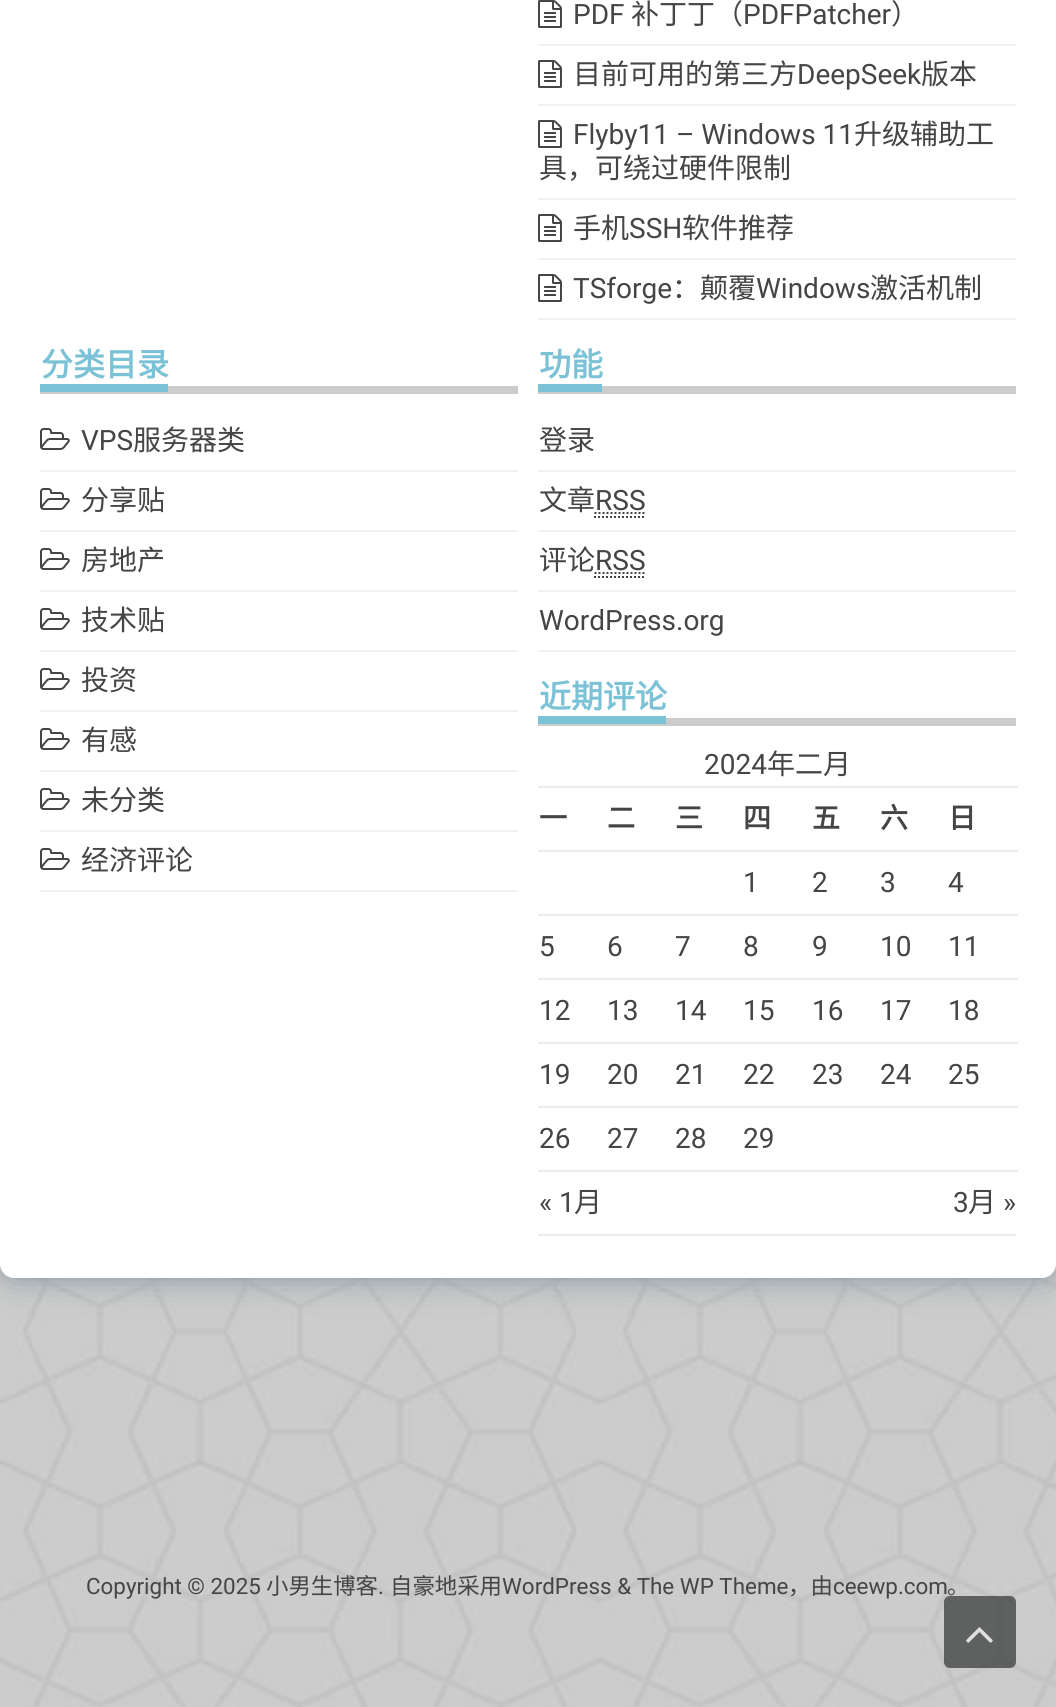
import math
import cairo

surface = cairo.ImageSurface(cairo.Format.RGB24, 1056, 1707)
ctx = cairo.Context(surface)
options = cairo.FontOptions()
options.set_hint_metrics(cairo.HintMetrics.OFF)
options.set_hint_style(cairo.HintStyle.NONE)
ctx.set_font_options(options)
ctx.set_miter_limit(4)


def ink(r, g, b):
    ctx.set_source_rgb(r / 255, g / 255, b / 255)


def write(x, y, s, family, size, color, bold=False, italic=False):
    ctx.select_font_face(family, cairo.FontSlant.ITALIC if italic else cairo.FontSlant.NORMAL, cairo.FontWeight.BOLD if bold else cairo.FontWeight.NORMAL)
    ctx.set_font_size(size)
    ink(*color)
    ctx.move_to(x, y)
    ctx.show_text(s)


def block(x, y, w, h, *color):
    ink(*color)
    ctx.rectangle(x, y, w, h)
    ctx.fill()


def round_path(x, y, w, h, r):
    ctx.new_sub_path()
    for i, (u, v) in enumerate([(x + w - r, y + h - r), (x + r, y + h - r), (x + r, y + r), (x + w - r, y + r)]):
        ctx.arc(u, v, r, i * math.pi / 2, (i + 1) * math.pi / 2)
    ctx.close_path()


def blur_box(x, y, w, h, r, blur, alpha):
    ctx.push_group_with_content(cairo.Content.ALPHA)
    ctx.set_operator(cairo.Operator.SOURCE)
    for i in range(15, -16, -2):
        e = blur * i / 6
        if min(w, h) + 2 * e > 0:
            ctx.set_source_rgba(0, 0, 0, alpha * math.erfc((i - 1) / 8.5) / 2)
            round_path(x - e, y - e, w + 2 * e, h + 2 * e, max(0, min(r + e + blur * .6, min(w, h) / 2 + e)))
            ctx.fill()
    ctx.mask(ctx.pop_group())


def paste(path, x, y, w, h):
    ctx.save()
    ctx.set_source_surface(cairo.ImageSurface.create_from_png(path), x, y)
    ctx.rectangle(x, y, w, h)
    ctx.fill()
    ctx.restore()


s1 = dict(family="Roboto", size=28, color=(68, 69, 69))
s2 = dict(family="Noto Sans CJK SC", size=28, color=(68, 69, 69))
s3 = dict(family="Noto Sans CJK SC", size=32, color=(123, 194, 215), bold=True)
s4 = dict(family="Noto Sans CJK SC", size=28, color=(68, 69, 69), bold=True)
s5 = dict(family="Roboto", size=22.4, color=(68, 69, 69))
s6 = dict(family="Noto Sans CJK SC", size=22.4, color=(68, 69, 69))

ink(255, 255, 255)
ctx.paint()
paste("pic1.png", 0, 1264, 1056, 443)
ink(133, 150, 159)
blur_box(0, -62, 1056, 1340, 14, 16, 1)
ink(255, 255, 255)
ctx.new_path()
ctx.move_to(0, -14)
ctx.line_to(1056, -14)
ctx.line_to(1056, 1264)
ctx.curve_to(1056, 1271.5, 1049.5, 1278, 1042, 1278)
ctx.line_to(14, 1278)
ctx.curve_to(6.5, 1278, 0, 1271.5, 0, 1264)
ctx.close_path()
ctx.fill()
block(538, 44, 478, 2, 242, 242, 242)
paste("pic2.png", 538, 0, 24, 28)
write(573, 24, "PDF", **s1)
write(631, 24, "补丁丁（", **s2)
write(743, 24, "PDFPatcher", **s1)
write(891, 24, "）", **s2)
block(538, 104, 478, 2, 242, 242, 242)
paste("pic2.png", 538, 60, 24, 28)
write(573, 84, "目前可用的第三方", **s2)
write(797, 84, "DeepSeek", **s1)
write(921, 84, "版本", **s2)
block(538, 198, 478, 2, 242, 242, 242)
paste("pic2.png", 538, 120, 24, 28)
write(573, 144, "Flyby11 – Windows 11", **s1)
write(854, 144, "升级辅助工", **s2)
write(539, 178, "具，可绕过硬件限制", **s2)
block(538, 258, 478, 2, 242, 242, 242)
paste("pic2.png", 538, 214, 24, 28)
write(573, 238, "手机", **s2)
write(629, 238, "SSH", **s1)
write(682, 238, "软件推荐", **s2)
block(538, 318, 478, 2, 242, 242, 242)
paste("pic2.png", 538, 274, 24, 28)
write(573, 298, "TSforge", **s1)
write(672, 298, "：颠覆", **s2)
write(756, 298, "Windows", **s1)
write(870, 298, "激活机制", **s2)
write(41, 376, "分类目录", **s3)
block(40, 386, 478, 8, 204, 204, 204)
block(40, 384, 128, 8, 123, 194, 215)
block(40, 470, 478, 2, 242, 242, 242)
paste("pic3.png", 40, 428, 30, 22)
write(81, 450, "VPS", **s1)
write(133, 450, "服务器类", **s2)
block(40, 530, 478, 2, 242, 242, 242)
paste("pic3.png", 40, 488, 30, 22)
write(81, 510, "分享贴", **s2)
block(40, 590, 478, 2, 242, 242, 242)
paste("pic3.png", 40, 548, 30, 22)
write(81, 570, "房地产", **s2)
block(40, 650, 478, 2, 242, 242, 242)
paste("pic3.png", 40, 608, 30, 22)
write(81, 630, "技术贴", **s2)
block(40, 710, 478, 2, 242, 242, 242)
paste("pic3.png", 40, 668, 30, 22)
write(81, 690, "投资", **s2)
block(40, 770, 478, 2, 242, 242, 242)
paste("pic3.png", 40, 728, 30, 22)
write(81, 750, "有感", **s2)
block(40, 830, 478, 2, 242, 242, 242)
paste("pic3.png", 40, 788, 30, 22)
write(81, 810, "未分类", **s2)
block(40, 890, 478, 2, 242, 242, 242)
paste("pic3.png", 40, 848, 30, 22)
write(81, 870, "经济评论", **s2)
write(539, 376, "功能", **s3)
block(538, 386, 478, 8, 204, 204, 204)
block(538, 384, 64, 8, 123, 194, 215)
block(538, 470, 478, 2, 242, 242, 242)
write(539, 450, "登录", **s2)
block(538, 530, 478, 2, 242, 242, 242)
write(539, 510, "文章", **s2)
write(595, 510, "RSS", **s1)
ctx.new_path()
ctx.move_to(594, 517)
ctx.line_to(646, 517)
ctx.move_to(594.5, 513)
ctx.line_to(645, 513)
ctx.set_dash([2, 2])
ctx.stroke()
block(538, 590, 478, 2, 242, 242, 242)
write(539, 570, "评论", **s2)
write(595, 570, "RSS", **s1)
ctx.new_path()
ctx.move_to(594, 577)
ctx.line_to(646, 577)
ctx.move_to(594.5, 573)
ctx.line_to(645, 573)
ctx.stroke()
block(538, 650, 478, 2, 242, 242, 242)
write(539, 630, "WordPress.org", **s1)
write(539, 708, "近期评论", **s3)
block(538, 718, 478, 8, 204, 204, 204)
block(538, 716, 128, 8, 123, 194, 215)
block(538, 1234, 478, 2, 235, 237, 237)
write(704, 774, "2024", **s1)
write(767, 774, "年二月", **s2)
write(539, 828, "一", **s4)
write(607, 828, "二", **s4)
write(675, 828, "三", **s4)
write(743, 828, "四", **s4)
write(812, 828, "五", **s4)
write(880, 828, "六", **s4)
block(538, 786, 480, 2, 235, 237, 237)
write(948, 828, "日", **s4)
write(743, 892, "1", **s1)
write(812, 892, "2", **s1)
write(880, 892, "3", **s1)
block(538, 850, 480, 2, 235, 237, 237)
write(948, 892, "4", **s1)
write(539, 956, "5", **s1)
write(607, 956, "6", **s1)
write(675, 956, "7", **s1)
write(743, 956, "8", **s1)
write(812, 956, "9", **s1)
write(880, 956, "10", **s1)
block(538, 914, 480, 2, 235, 237, 237)
write(948, 956, "11", **s1)
write(539, 1020, "12", **s1)
write(607, 1020, "13", **s1)
write(675, 1020, "14", **s1)
write(743, 1020, "15", **s1)
write(812, 1020, "16", **s1)
write(880, 1020, "17", **s1)
block(538, 978, 480, 2, 235, 237, 237)
write(948, 1020, "18", **s1)
write(539, 1084, "19", **s1)
write(607, 1084, "20", **s1)
write(675, 1084, "21", **s1)
write(743, 1084, "22", **s1)
write(812, 1084, "23", **s1)
write(880, 1084, "24", **s1)
block(538, 1042, 480, 2, 235, 237, 237)
write(948, 1084, "25", **s1)
block(538, 1106, 480, 2, 235, 237, 237)
write(539, 1148, "26", **s1)
write(607, 1148, "27", **s1)
write(675, 1148, "28", **s1)
write(743, 1148, "29", **s1)
write(539, 1212, "« 1", **s1)
write(574, 1212, "月", **s2)
block(538, 1170, 480, 2, 235, 237, 237)
write(953, 1212, "3", **s1)
write(968, 1212, "月", **s2)
write(1003, 1212, "»", **s1)
write(86, 1594, "Copyright © 2025", **s5)
write(266, 1594, "小男生博客", **s6)
write(378, 1594, ".", **s5)
write(390, 1594, "自豪地采用", **s6)
write(502, 1594, "WordPress & The WP Theme", **s5)
write(788, 1594, "，由", **s6)
write(833, 1594, "ceewp.com", **s5)
write(947, 1594, "。", **s6)
ctx.set_source_rgba(0.267, 0.271, 0.271, 0.8)
round_path(944, 1596, 72, 72, 6)
ctx.fill()
paste("pic4.png", 966, 1627, 27, 16)
surface.write_to_png("screenshot.png")
